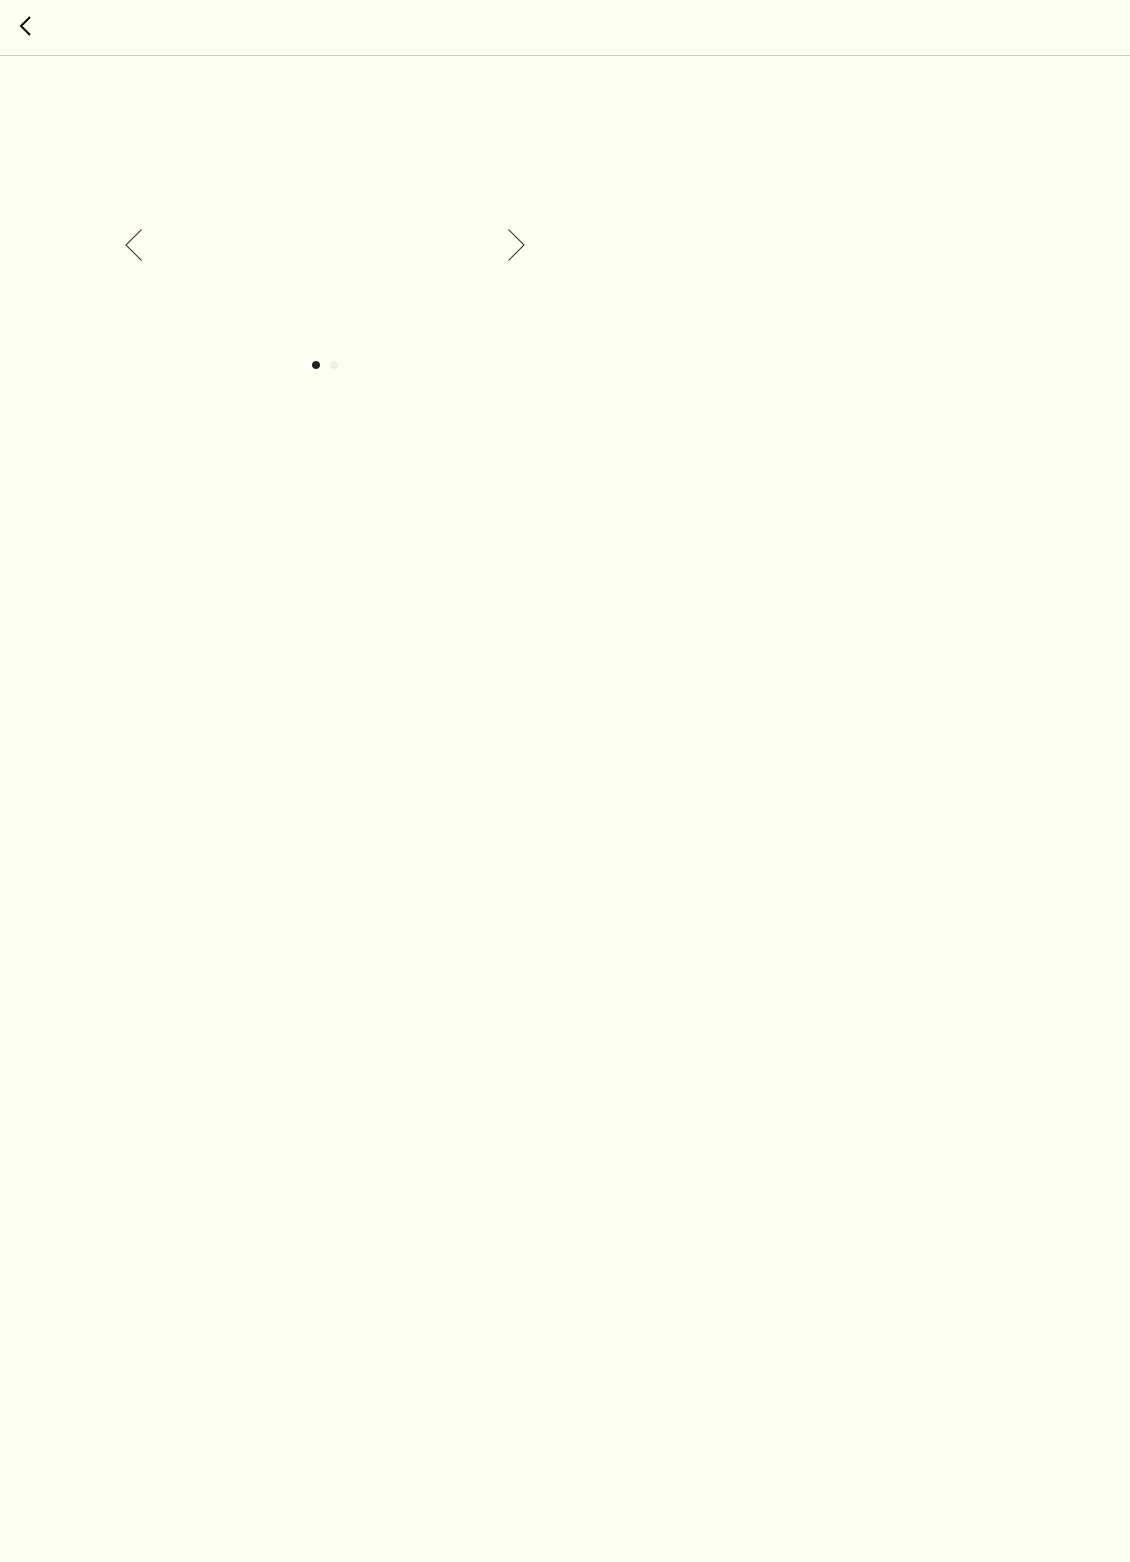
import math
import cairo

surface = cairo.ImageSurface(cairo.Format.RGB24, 1130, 1562)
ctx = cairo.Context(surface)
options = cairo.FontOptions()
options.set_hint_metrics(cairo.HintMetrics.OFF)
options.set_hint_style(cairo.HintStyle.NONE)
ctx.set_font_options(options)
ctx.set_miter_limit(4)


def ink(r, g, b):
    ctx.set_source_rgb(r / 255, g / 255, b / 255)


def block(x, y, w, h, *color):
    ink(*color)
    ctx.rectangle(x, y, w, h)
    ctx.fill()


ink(252, 255, 242)
ctx.paint()
block(0, 55, 1130, 1, 202, 204, 194)
ctx.new_path()
ctx.move_to(30, 35)
ctx.line_to(21, 26)
ctx.line_to(30, 17)
ink(0, 0, 0)
ctx.stroke()
ctx.new_path()
ctx.move_to(141.5, 260.5)
ctx.line_to(126, 245)
ctx.line_to(141.5, 229.5)
ink(34, 34, 34)
ctx.set_line_width(1)
ctx.stroke()
ctx.new_path()
ctx.move_to(508.5, 229.5)
ctx.line_to(524, 245)
ctx.line_to(508.5, 260.5)
ctx.stroke()
ctx.arc(316, 365, 4, 0, 2 * math.pi)
ctx.fill()
ink(238, 238, 238)
ctx.arc(334, 365, 4, 0, 2 * math.pi)
ctx.fill()
surface.write_to_png("screenshot.png")
